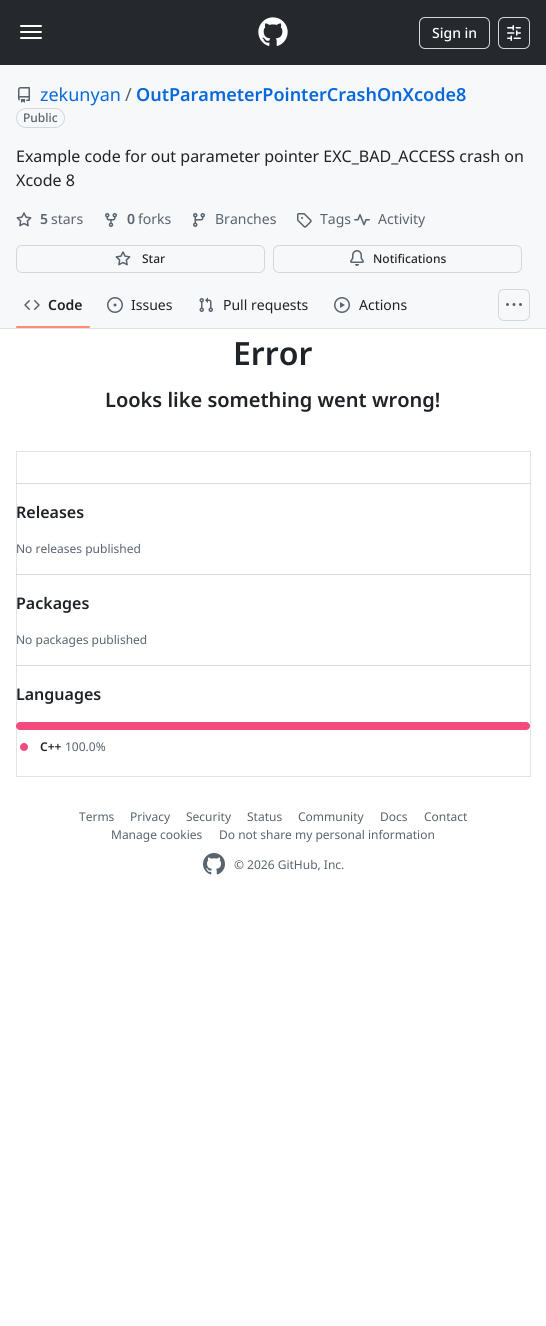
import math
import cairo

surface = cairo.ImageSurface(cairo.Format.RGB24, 546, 1326)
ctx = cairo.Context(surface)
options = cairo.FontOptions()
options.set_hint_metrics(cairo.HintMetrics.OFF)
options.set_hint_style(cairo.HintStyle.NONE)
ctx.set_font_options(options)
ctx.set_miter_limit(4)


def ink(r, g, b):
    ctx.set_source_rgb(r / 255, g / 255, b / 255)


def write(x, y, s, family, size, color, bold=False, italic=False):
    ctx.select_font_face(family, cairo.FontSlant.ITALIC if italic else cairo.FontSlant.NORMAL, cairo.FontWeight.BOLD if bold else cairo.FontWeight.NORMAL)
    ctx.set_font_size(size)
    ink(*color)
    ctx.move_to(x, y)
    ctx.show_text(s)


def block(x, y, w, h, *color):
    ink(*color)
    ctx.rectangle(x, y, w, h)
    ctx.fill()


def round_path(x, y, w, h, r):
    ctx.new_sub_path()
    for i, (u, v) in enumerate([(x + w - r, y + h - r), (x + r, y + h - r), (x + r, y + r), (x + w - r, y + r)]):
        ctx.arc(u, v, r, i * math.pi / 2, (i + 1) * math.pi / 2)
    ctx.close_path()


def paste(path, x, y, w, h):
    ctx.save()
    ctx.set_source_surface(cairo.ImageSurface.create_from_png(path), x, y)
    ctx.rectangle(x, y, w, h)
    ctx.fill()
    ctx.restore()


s1 = dict(family="Noto Sans Medium", size=14, color=(255, 255, 255))
s2 = dict(family="Noto Sans", size=18, color=(9, 105, 218))
s3 = dict(family="Noto Sans", size=18, color=(89, 99, 110))
s4 = dict(family="Noto Sans SemiBold", size=18, color=(9, 105, 218))
s5 = dict(family="Noto Sans Medium", size=12, color=(89, 99, 110))
s6 = dict(family="Noto Sans", size=16, color=(31, 35, 40))
s7 = dict(family="Noto Sans SemiBold", size=14, color=(89, 99, 110))
s8 = dict(family="Noto Sans", size=14, color=(89, 99, 110))
s9 = dict(family="Noto Sans Medium", size=12, color=(37, 41, 46))
s10 = dict(family="Noto Sans SemiBold", size=14, color=(31, 35, 40))
s11 = dict(family="Noto Sans", size=14, color=(31, 35, 40))
s12 = dict(family="Noto Sans SemiBold", size=32, color=(31, 35, 40))
s13 = dict(family="Noto Sans SemiBold", size=20, color=(31, 35, 40))
s14 = dict(family="Noto Sans SemiBold", size=16, color=(31, 35, 40))
s15 = dict(family="Noto Sans", size=12, color=(89, 99, 110))
s16 = dict(family="Noto Sans SemiBold", size=12, color=(31, 35, 40))

ink(255, 255, 255)
ctx.paint()
block(16, 451, 1, 326, 223, 228, 233)
block(530, 451, 1, 215, 223, 228, 233)
block(16, 776, 515, 1, 223, 228, 233)
block(16, 776, 1, 1, 213, 220, 227)
block(530, 665, 1, 112, 223, 228, 233)
block(530, 776, 1, 1, 213, 220, 227)
block(0, 0, 546, 65, 37, 41, 46)
ink(255, 255, 255)
round_path(20, 25, 22, 2, 1)
ctx.fill()
round_path(20, 31, 22, 2, 1)
ctx.fill()
round_path(20, 37, 22, 2, 1)
ctx.fill()
paste("pic1.png", 258, 17, 30, 29)
round_path(419.5, 17.5, 70, 31, 5.5)
ink(209, 217, 224)
ctx.set_line_width(1)
ctx.stroke()
write(432, 38, "Sign in", **s1)
round_path(498.5, 17.5, 31, 31, 5.5)
ink(209, 217, 224)
ctx.stroke()
paste("pic2.png", 507, 25, 14, 16)
block(0, 65, 546, 263, 246, 248, 250)
paste("pic3.png", 18, 87, 12, 16)
write(40, 101, "zekunyan", **s2)
write(125, 101, "/", **s3)
write(136, 101, "OutParameterPointerCrashOnXcode8", **s4)
round_path(16.5, 108.5, 48, 19, 9.5)
ink(209, 217, 224)
ctx.stroke()
write(23, 122, "Public", **s5)
write(16, 162, "Example code for out parameter pointer EXC_BAD_ACCESS crash on", **s6)
write(16, 186, "Xcode 8", **s6)
paste("pic4.png", 16, 212, 16, 15)
write(40, 224, "5", **s7)
write(51, 224, "stars", **s8)
paste("pic5.png", 105, 213, 12, 14)
write(127, 224, "0", **s7)
write(138, 224, "forks", **s8)
paste("pic6.png", 193, 213, 12, 14)
write(215, 224, "Branches", **s8)
paste("pic7.png", 297, 213, 15, 15)
write(320, 224, "Tags", **s8)
paste("pic8.png", 354, 214, 16, 12)
write(378, 224, "Activity", **s8)
round_path(16.5, 245.5, 248, 27, 5.5)
ink(209, 217, 224)
ctx.stroke()
paste("pic4.png", 115, 251, 16, 15)
write(142, 263, "Star", **s9)
round_path(273.5, 245.5, 248, 27, 5.5)
ink(209, 217, 224)
ctx.stroke()
paste("pic9.png", 350, 250, 14, 16)
write(373, 263, "Notifications", **s9)
block(0, 328, 546, 1, 220, 226, 232)
paste("pic10.png", 24, 300, 16, 10)
write(48, 310, "Code", **s10)
ink(253, 140, 115)
round_path(16, 326, 74, 2, 1)
ctx.fill()
paste("pic11.png", 107, 297, 16, 16)
write(131, 310, "Issues", **s11)
paste("pic12.png", 199, 297, 14, 15)
write(223, 310, "Pull requests", **s11)
paste("pic13.png", 334, 297, 16, 16)
write(359, 310, "Actions", **s11)
round_path(498.5, 289.5, 31, 31, 5.5)
ink(209, 217, 224)
ctx.stroke()
paste("pic14.png", 506, 303, 16, 3)
write(233, 365, "Error", **s12)
write(105, 407, "Looks like something went wrong!", **s13)
block(16, 451, 515, 1, 223, 228, 233)
block(16, 451, 1, 1, 213, 220, 227)
block(530, 451, 1, 1, 213, 220, 227)
block(16, 483, 515, 1, 213, 220, 227)
block(16, 483, 1, 1, 209, 217, 224)
block(530, 483, 1, 1, 209, 217, 224)
write(16, 518, "Releases", **s14)
write(16, 553, "No releases published", **s15)
block(16, 574, 515, 1, 213, 220, 227)
block(16, 574, 1, 1, 209, 217, 224)
block(530, 574, 1, 1, 209, 217, 224)
write(16, 609, "Packages", **s14)
write(16, 644, "No packages published", **s15)
block(16, 665, 515, 1, 213, 220, 227)
block(16, 665, 1, 1, 209, 217, 224)
block(530, 665, 1, 1, 209, 217, 224)
write(16, 700, "Languages", **s14)
ink(243, 75, 125)
round_path(16, 722, 514, 8, 4)
ctx.fill()
paste("pic15.png", 20, 743, 8, 8)
write(40, 751, "C++", **s16)
write(65, 751, "100.0%", **s15)
write(79, 821, "Terms", **s15)
write(130, 821, "Privacy", **s15)
write(186, 821, "Security", **s15)
write(247, 821, "Status", **s15)
write(298, 821, "Community", **s15)
write(380, 821, "Docs", **s15)
write(424, 821, "Contact", **s15)
write(111, 839, "Manage cookies", **s15)
write(219, 839, "Do not share my personal information", **s15)
paste("pic16.png", 203, 853, 22, 22)
write(234, 869, "© 2026 GitHub, Inc.", **s15)
surface.write_to_png("screenshot.png")
